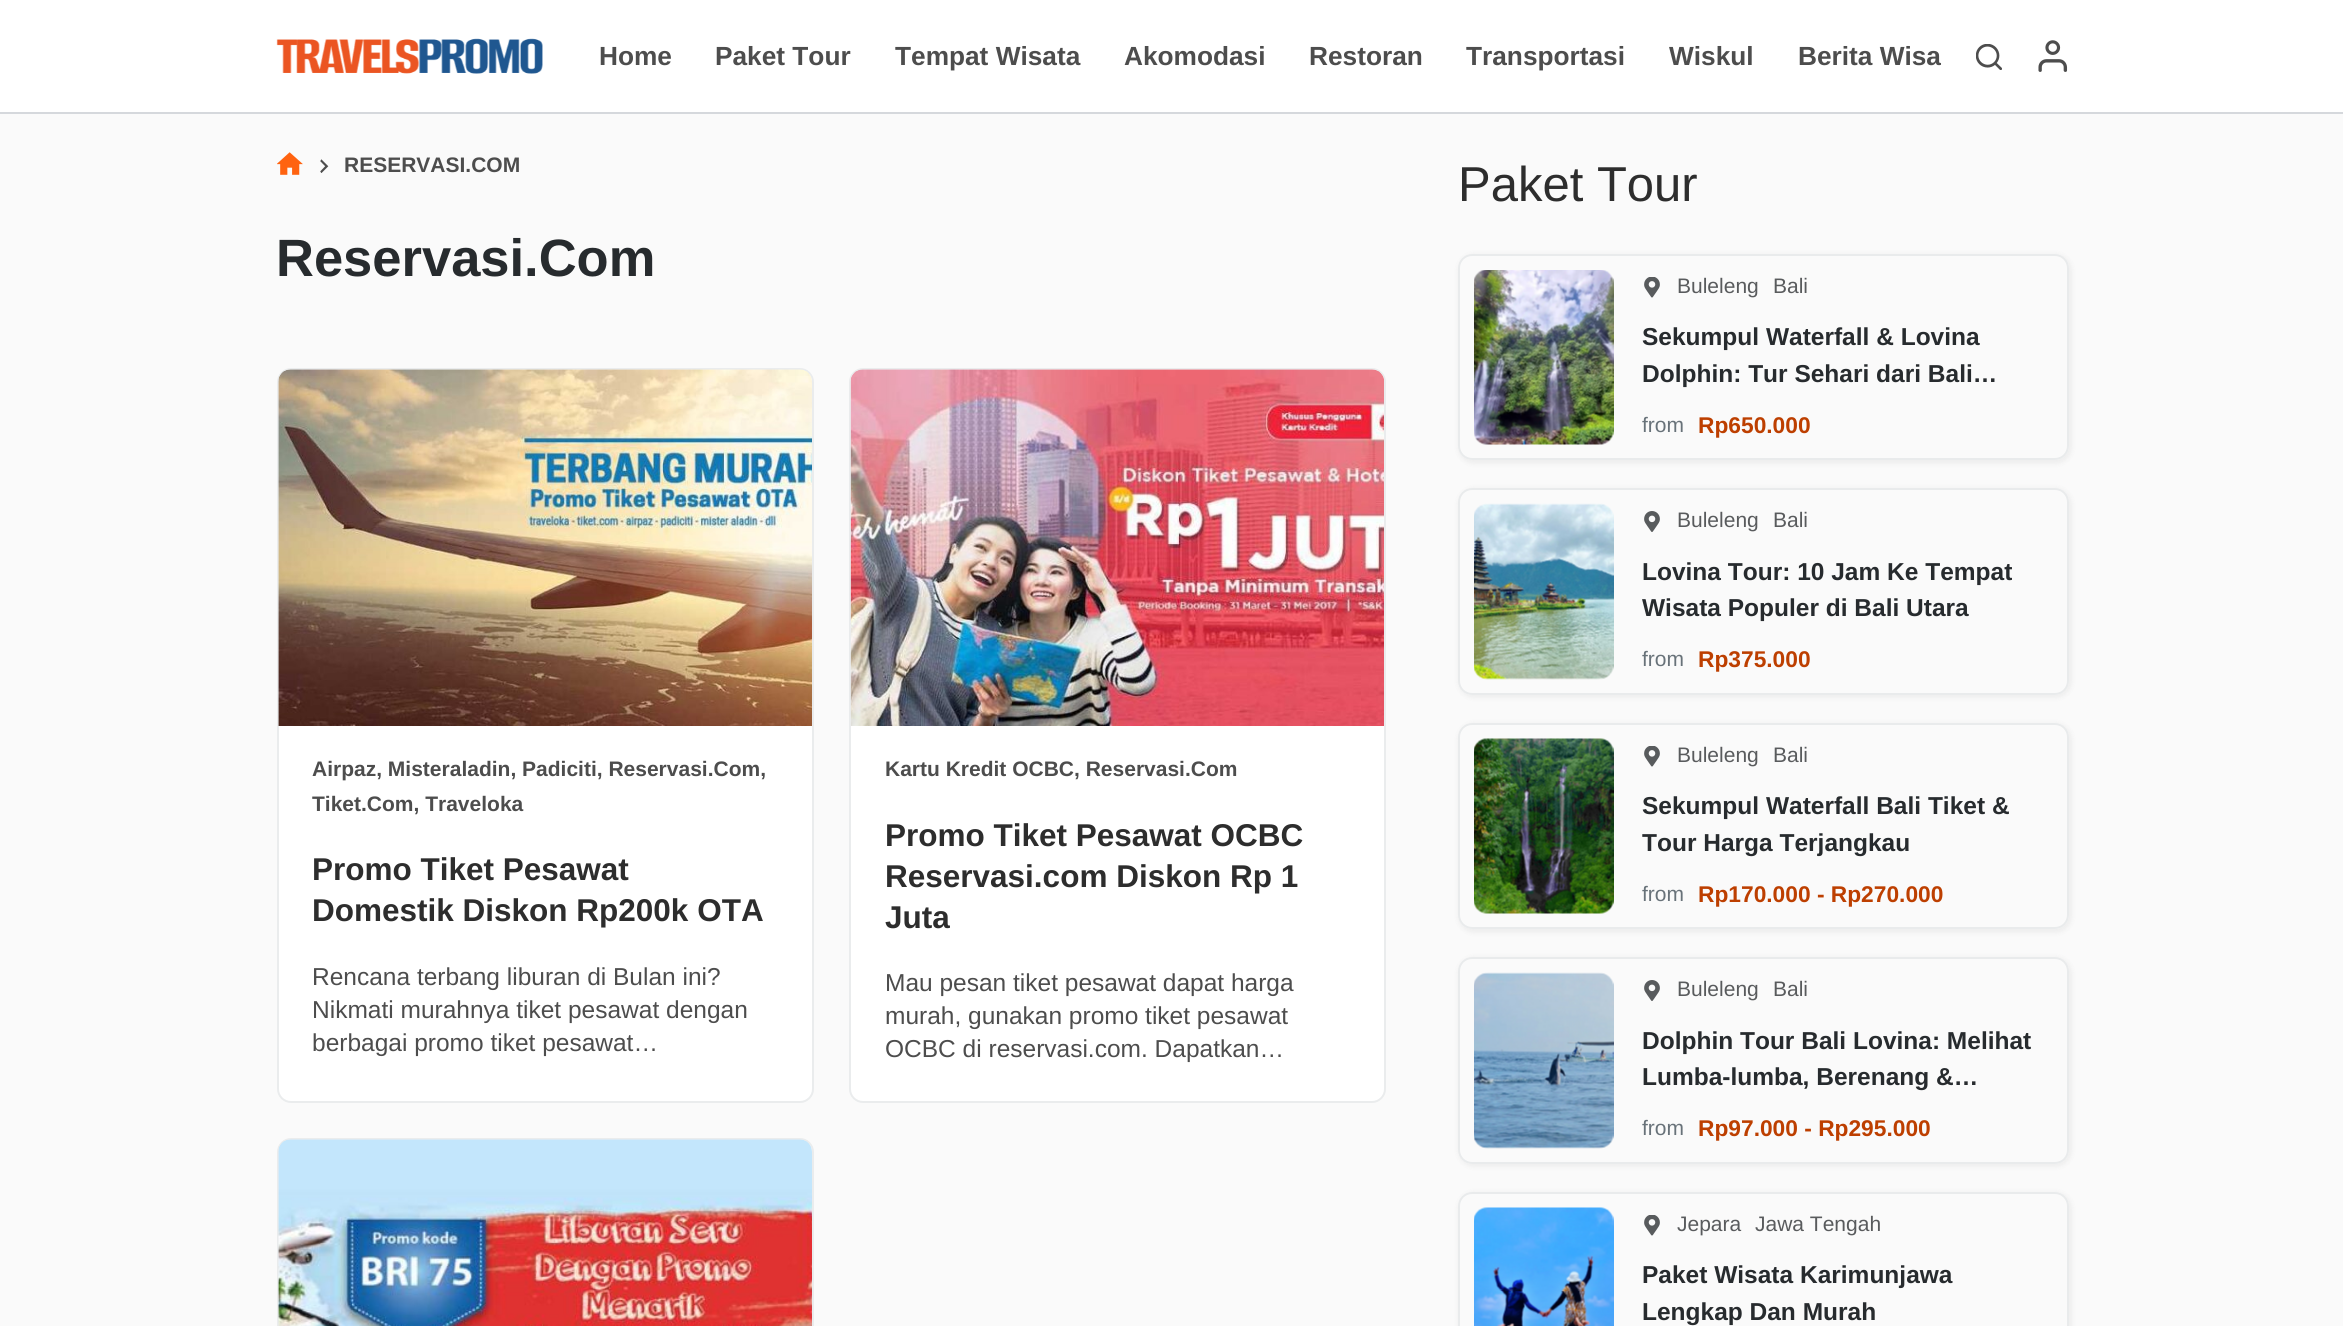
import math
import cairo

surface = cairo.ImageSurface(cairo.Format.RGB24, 2343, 1326)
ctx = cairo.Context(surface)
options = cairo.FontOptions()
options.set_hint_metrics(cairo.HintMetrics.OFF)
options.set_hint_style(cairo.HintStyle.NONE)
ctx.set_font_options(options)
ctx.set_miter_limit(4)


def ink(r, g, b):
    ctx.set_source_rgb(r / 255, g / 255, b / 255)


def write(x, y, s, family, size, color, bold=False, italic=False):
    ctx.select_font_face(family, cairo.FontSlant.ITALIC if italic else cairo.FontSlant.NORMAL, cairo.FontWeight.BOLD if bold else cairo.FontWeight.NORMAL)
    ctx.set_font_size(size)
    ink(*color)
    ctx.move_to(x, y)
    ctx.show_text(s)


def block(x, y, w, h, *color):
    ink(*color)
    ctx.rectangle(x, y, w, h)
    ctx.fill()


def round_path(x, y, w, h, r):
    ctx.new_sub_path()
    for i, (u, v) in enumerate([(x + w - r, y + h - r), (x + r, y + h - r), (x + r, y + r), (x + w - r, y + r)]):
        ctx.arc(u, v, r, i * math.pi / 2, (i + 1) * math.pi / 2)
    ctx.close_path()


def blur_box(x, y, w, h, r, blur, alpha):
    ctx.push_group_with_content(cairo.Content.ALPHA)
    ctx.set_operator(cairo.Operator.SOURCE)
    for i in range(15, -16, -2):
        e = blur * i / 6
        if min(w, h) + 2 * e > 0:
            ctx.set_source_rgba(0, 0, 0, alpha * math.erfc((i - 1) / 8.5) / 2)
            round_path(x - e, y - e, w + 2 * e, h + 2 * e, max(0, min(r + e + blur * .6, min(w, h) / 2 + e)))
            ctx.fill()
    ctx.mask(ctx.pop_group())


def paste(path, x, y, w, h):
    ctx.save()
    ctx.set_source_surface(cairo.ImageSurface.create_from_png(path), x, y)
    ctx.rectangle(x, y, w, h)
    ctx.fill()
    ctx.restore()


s1 = dict(family="Liberation Sans", size=26.25, color=(77, 77, 77), bold=True)
s2 = dict(family="Liberation Sans", size=21, color=(77, 77, 77), bold=True)
s3 = dict(family="Liberation Sans", size=52.5, color=(39, 43, 46), bold=True)
s4 = dict(family="Liberation Sans", size=31.5, color=(45, 45, 45), bold=True)
s5 = dict(family="Liberation Sans", size=24.5, color=(77, 77, 77))
s6 = dict(family="Liberation Sans", size=49, color=(45, 45, 45))
s7 = dict(family="Liberation Sans", size=21, color=(89, 91, 93))
s8 = dict(family="Liberation Sans", size=24.5, color=(39, 43, 46), bold=True)
s9 = dict(family="Liberation Sans", size=21, color=(104, 114, 121))
s10 = dict(family="Liberation Sans", size=22.75, color=(189, 63, 0), bold=True)

ink(250, 250, 250)
ctx.paint()
block(0, 0, 2343, 112, 255, 255, 255)
block(0, 112, 2343, 2, 213, 216, 220)
paste("pic1.png", 276, 38, 267, 36)
write(599, 65, "Home", **s1)
write(715, 65, "Paket Tour", **s1)
write(895, 65, "Tempat Wisata", **s1)
write(1124, 65, "Akomodasi", **s1)
write(1309, 65, "Restoran", **s1)
write(1466, 65, "Transportasi", **s1)
write(1669, 65, "Wiskul", **s1)
write(1798, 65, "Berita Wisa", **s1)
paste("pic2.png", 1976, 44, 26, 26)
paste("pic3.png", 2038, 40, 30, 32)
paste("pic4.png", 277, 152, 26, 23)
paste("pic5.png", 320, 159, 9, 14)
write(344, 172, "RESERVASI.COM", **s2)
write(276, 276, "Reservasi.Com", **s3)
ink(255, 255, 255)
round_path(277, 368, 537, 735, 14)
ctx.fill()
round_path(278, 369, 535, 733, 13)
ctx.set_source_rgba(0.169, 0.239, 0.31, 0.1)
ctx.stroke()
paste("pic6.png", 278, 369, 534, 357)
write(312, 776, "Airpaz, Misteraladin, Padiciti, Reservasi.Com,", **s2)
write(312, 811, "Tiket.Com, Traveloka", **s2)
write(312, 880, "Promo Tiket Pesawat", **s4)
write(312, 921, "Domestik Diskon Rp200k OTA", **s4)
write(312, 985, "Rencana terbang liburan di Bulan ini?", **s5)
write(312, 1018, "Nikmati murahnya tiket pesawat dengan", **s5)
write(312, 1051, "berbagai promo tiket pesawat…", **s5)
ink(255, 255, 255)
round_path(849, 368, 537, 735, 14)
ctx.fill()
round_path(850, 369, 535, 733, 13)
ctx.set_source_rgba(0.169, 0.239, 0.31, 0.1)
ctx.stroke()
paste("pic7.png", 850, 369, 534, 357)
write(885, 776, "Kartu Kredit OCBC, Reservasi.Com", **s2)
write(885, 846, "Promo Tiket Pesawat OCBC", **s4)
write(885, 887, "Reservasi.com Diskon Rp 1", **s4)
write(885, 928, "Juta", **s4)
write(885, 991, "Mau pesan tiket pesawat dapat harga", **s5)
write(885, 1024, "murah, gunakan promo tiket pesawat", **s5)
write(885, 1057, "OCBC di reservasi.com. Dapatkan…", **s5)
ink(255, 255, 255)
round_path(277, 1138, 537, 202, 14)
ctx.fill()
round_path(278, 1139, 535, 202, 13)
ctx.set_source_rgba(0.169, 0.239, 0.31, 0.1)
ctx.stroke()
paste("pic8.png", 278, 1139, 534, 187)
write(1458, 201, "Paket Tour", **s6)
ctx.save()
ctx.set_fill_rule(cairo.FillRule.EVEN_ODD)
ctx.new_path()
ctx.move_to(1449, 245)
ctx.line_to(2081, 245)
ctx.line_to(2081, 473)
ctx.line_to(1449, 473)
ctx.close_path()
ctx.move_to(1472, 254)
ctx.line_to(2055, 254)
ctx.curve_to(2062.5, 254, 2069, 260.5, 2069, 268)
ctx.line_to(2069, 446)
ctx.curve_to(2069, 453.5, 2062.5, 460, 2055, 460)
ctx.line_to(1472, 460)
ctx.curve_to(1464.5, 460, 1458, 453.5, 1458, 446)
ctx.line_to(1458, 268)
ctx.curve_to(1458, 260.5, 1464.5, 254, 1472, 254)
ctx.close_path()
ctx.clip()
ink(0, 0, 0)
blur_box(1458, 254, 614, 210, 16, 2.5, 0.05)
ctx.restore()
round_path(1459, 255, 609, 204, 13)
ink(233, 235, 236)
ctx.stroke()
paste("pic9.png", 1474, 270, 140, 175)
paste("pic10.png", 1644, 277, 16, 21)
write(1677, 293, "Buleleng", **s7)
write(1773, 293, "Bali", **s7)
write(1642, 345, "Sekumpul Waterfall & Lovina", **s8)
write(1642, 382, "Dolphin: Tur Sehari dari Bali…", **s8)
write(1642, 432, "from", **s9)
write(1698, 433, "Rp650.000", **s10)
ctx.save()
ctx.set_fill_rule(cairo.FillRule.EVEN_ODD)
ctx.new_path()
ctx.move_to(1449, 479)
ctx.line_to(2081, 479)
ctx.line_to(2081, 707)
ctx.line_to(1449, 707)
ctx.close_path()
ctx.move_to(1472, 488)
ctx.line_to(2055, 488)
ctx.curve_to(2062.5, 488, 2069, 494.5, 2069, 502)
ctx.line_to(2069, 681)
ctx.curve_to(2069, 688.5, 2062.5, 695, 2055, 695)
ctx.line_to(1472, 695)
ctx.curve_to(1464.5, 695, 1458, 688.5, 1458, 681)
ctx.line_to(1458, 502)
ctx.curve_to(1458, 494.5, 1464.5, 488, 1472, 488)
ctx.close_path()
ctx.clip()
ink(0, 0, 0)
blur_box(1458, 488, 614, 210, 16, 2.5, 0.05)
ctx.restore()
round_path(1459, 489, 609, 205, 13)
ink(233, 235, 236)
ctx.stroke()
paste("pic11.png", 1474, 503, 140, 177)
paste("pic12.png", 1644, 511, 16, 21)
write(1677, 527, "Buleleng", **s7)
write(1773, 527, "Bali", **s7)
write(1642, 580, "Lovina Tour: 10 Jam Ke Tempat", **s8)
write(1642, 616, "Wisata Populer di Bali Utara", **s8)
write(1642, 666, "from", **s9)
write(1698, 667, "Rp375.000", **s10)
ctx.save()
ctx.set_fill_rule(cairo.FillRule.EVEN_ODD)
ctx.new_path()
ctx.move_to(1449, 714)
ctx.line_to(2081, 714)
ctx.line_to(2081, 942)
ctx.line_to(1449, 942)
ctx.close_path()
ctx.move_to(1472, 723)
ctx.line_to(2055, 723)
ctx.curve_to(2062.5, 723, 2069, 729.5, 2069, 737)
ctx.line_to(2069, 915)
ctx.curve_to(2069, 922.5, 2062.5, 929, 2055, 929)
ctx.line_to(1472, 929)
ctx.curve_to(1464.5, 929, 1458, 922.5, 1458, 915)
ctx.line_to(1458, 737)
ctx.curve_to(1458, 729.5, 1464.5, 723, 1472, 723)
ctx.close_path()
ctx.clip()
ink(0, 0, 0)
blur_box(1458, 723, 614, 210, 16, 2.5, 0.05)
ctx.restore()
round_path(1459, 724, 609, 204, 13)
ink(233, 235, 236)
ctx.stroke()
paste("pic13.png", 1474, 738, 140, 176)
paste("pic10.png", 1644, 746, 16, 21)
write(1677, 762, "Buleleng", **s7)
write(1773, 762, "Bali", **s7)
write(1642, 814, "Sekumpul Waterfall Bali Tiket &", **s8)
write(1642, 851, "Tour Harga Terjangkau", **s8)
write(1642, 901, "from", **s9)
write(1698, 902, "Rp170.000 - Rp270.000", **s10)
ctx.save()
ctx.set_fill_rule(cairo.FillRule.EVEN_ODD)
ctx.new_path()
ctx.move_to(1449, 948)
ctx.line_to(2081, 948)
ctx.line_to(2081, 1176)
ctx.line_to(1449, 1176)
ctx.close_path()
ctx.move_to(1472, 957)
ctx.line_to(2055, 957)
ctx.curve_to(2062.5, 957, 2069, 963.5, 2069, 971)
ctx.line_to(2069, 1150)
ctx.curve_to(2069, 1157.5, 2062.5, 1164, 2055, 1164)
ctx.line_to(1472, 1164)
ctx.curve_to(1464.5, 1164, 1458, 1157.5, 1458, 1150)
ctx.line_to(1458, 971)
ctx.curve_to(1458, 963.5, 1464.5, 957, 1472, 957)
ctx.close_path()
ctx.clip()
ink(0, 0, 0)
blur_box(1458, 957, 614, 210, 16, 2.5, 0.05)
ctx.restore()
round_path(1459, 958, 609, 205, 13)
ink(233, 235, 236)
ctx.stroke()
paste("pic14.png", 1474, 972, 140, 177)
paste("pic12.png", 1644, 980, 16, 21)
write(1677, 996, "Buleleng", **s7)
write(1773, 996, "Bali", **s7)
write(1642, 1049, "Dolphin Tour Bali Lovina: Melihat", **s8)
write(1642, 1085, "Lumba-lumba, Berenang &…", **s8)
write(1642, 1135, "from", **s9)
write(1698, 1136, "Rp97.000 - Rp295.000", **s10)
ctx.save()
ctx.set_fill_rule(cairo.FillRule.EVEN_ODD)
ctx.new_path()
ctx.move_to(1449, 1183)
ctx.line_to(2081, 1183)
ctx.line_to(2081, 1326)
ctx.line_to(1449, 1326)
ctx.close_path()
ctx.move_to(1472, 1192)
ctx.line_to(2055, 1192)
ctx.curve_to(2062.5, 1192, 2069, 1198.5, 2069, 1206)
ctx.line_to(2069, 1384)
ctx.curve_to(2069, 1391.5, 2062.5, 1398, 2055, 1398)
ctx.line_to(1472, 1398)
ctx.curve_to(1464.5, 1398, 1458, 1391.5, 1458, 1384)
ctx.line_to(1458, 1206)
ctx.curve_to(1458, 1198.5, 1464.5, 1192, 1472, 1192)
ctx.close_path()
ctx.clip()
ink(0, 0, 0)
blur_box(1458, 1192, 614, 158, 16, 2.5, 0.05)
ctx.restore()
round_path(1459, 1193, 609, 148, 13)
ink(233, 235, 236)
ctx.stroke()
paste("pic15.png", 1474, 1207, 140, 119)
paste("pic10.png", 1644, 1215, 16, 21)
write(1677, 1231, "Jepara", **s7)
write(1755, 1231, "Jawa Tengah", **s7)
write(1642, 1283, "Paket Wisata Karimunjawa", **s8)
write(1642, 1320, "Lengkap Dan Murah", **s8)
surface.write_to_png("screenshot.png")
